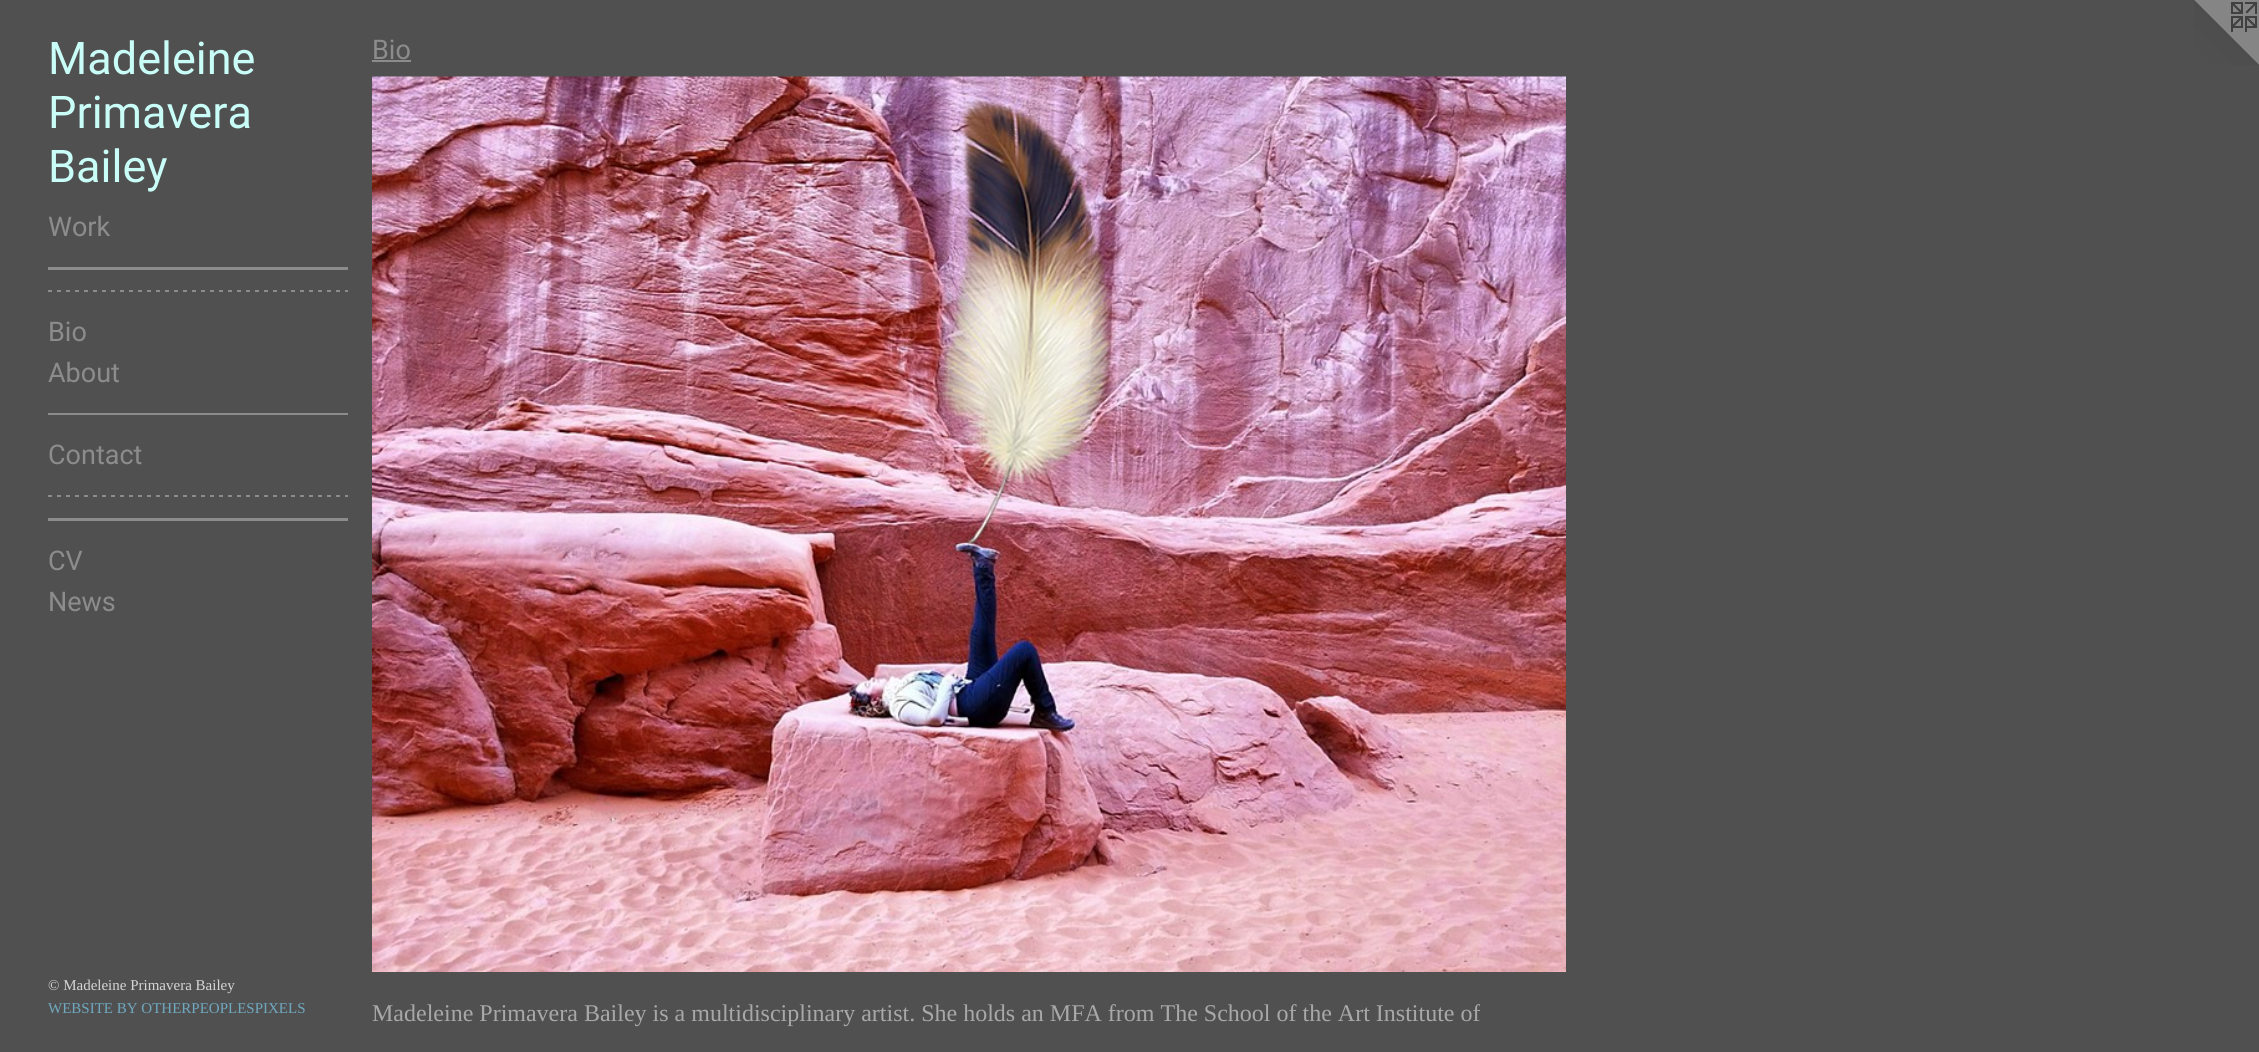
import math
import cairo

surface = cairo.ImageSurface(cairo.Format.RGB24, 2259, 1052)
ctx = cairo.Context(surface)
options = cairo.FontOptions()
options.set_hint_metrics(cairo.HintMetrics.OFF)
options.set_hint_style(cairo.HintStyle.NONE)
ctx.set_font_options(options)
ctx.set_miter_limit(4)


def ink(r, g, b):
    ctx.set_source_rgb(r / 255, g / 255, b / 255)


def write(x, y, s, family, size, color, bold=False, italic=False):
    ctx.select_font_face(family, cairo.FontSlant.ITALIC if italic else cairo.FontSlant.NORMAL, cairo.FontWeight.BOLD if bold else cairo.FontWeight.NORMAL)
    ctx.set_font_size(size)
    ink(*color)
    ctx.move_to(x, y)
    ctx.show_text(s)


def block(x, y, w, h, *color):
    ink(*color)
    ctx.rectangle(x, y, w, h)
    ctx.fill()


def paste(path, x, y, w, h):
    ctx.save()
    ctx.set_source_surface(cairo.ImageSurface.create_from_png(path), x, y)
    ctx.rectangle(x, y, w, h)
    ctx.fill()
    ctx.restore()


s1 = dict(family="Roboto", size=45, color=(201, 253, 247))
s2 = dict(family="Roboto", size=27, color=(140, 140, 140))
s3 = dict(family="Liberation Serif", size=15, color=(214, 214, 214))
s4 = dict(family="Liberation Serif", size=15, color=(112, 168, 192))
s5 = dict(family="Liberation Serif", size=24, color=(168, 168, 168))

ink(80, 80, 80)
ctx.paint()
write(48, 74, "Madeleine", **s1)
write(48, 128, "Primavera", **s1)
write(48, 182, "Bailey", **s1)
write(48, 236, "Work", **s2)
block(48, 267, 300, 3, 140, 140, 140)
paste("pic1.png", 48, 290, 300, 2)
write(48, 341, "Bio", **s2)
write(48, 382, "About", **s2)
block(48, 413, 300, 2, 140, 140, 140)
write(48, 464, "Contact", **s2)
paste("pic1.png", 48, 495, 300, 2)
block(48, 518, 300, 3, 140, 140, 140)
write(48, 570, "CV", **s2)
write(48, 611, "News", **s2)
write(48, 990, "© Madeleine Primavera Bailey", **s3)
write(48, 1013, "WEBSITE BY OTHERPEOPLESPIXELS", **s4)
paste("pic2.png", 2194, 0, 65, 65)
write(372, 59, "Bio", **s2)
block(372, 60, 39, 2, 140, 140, 140)
paste("pic3.png", 372, 76, 1194, 896)
write(372, 1021, "Madeleine Primavera Bailey is a multidisciplinary artist. She holds an MFA from The School of the Art Institute of", **s5)
surface.write_to_png("screenshot.png")
